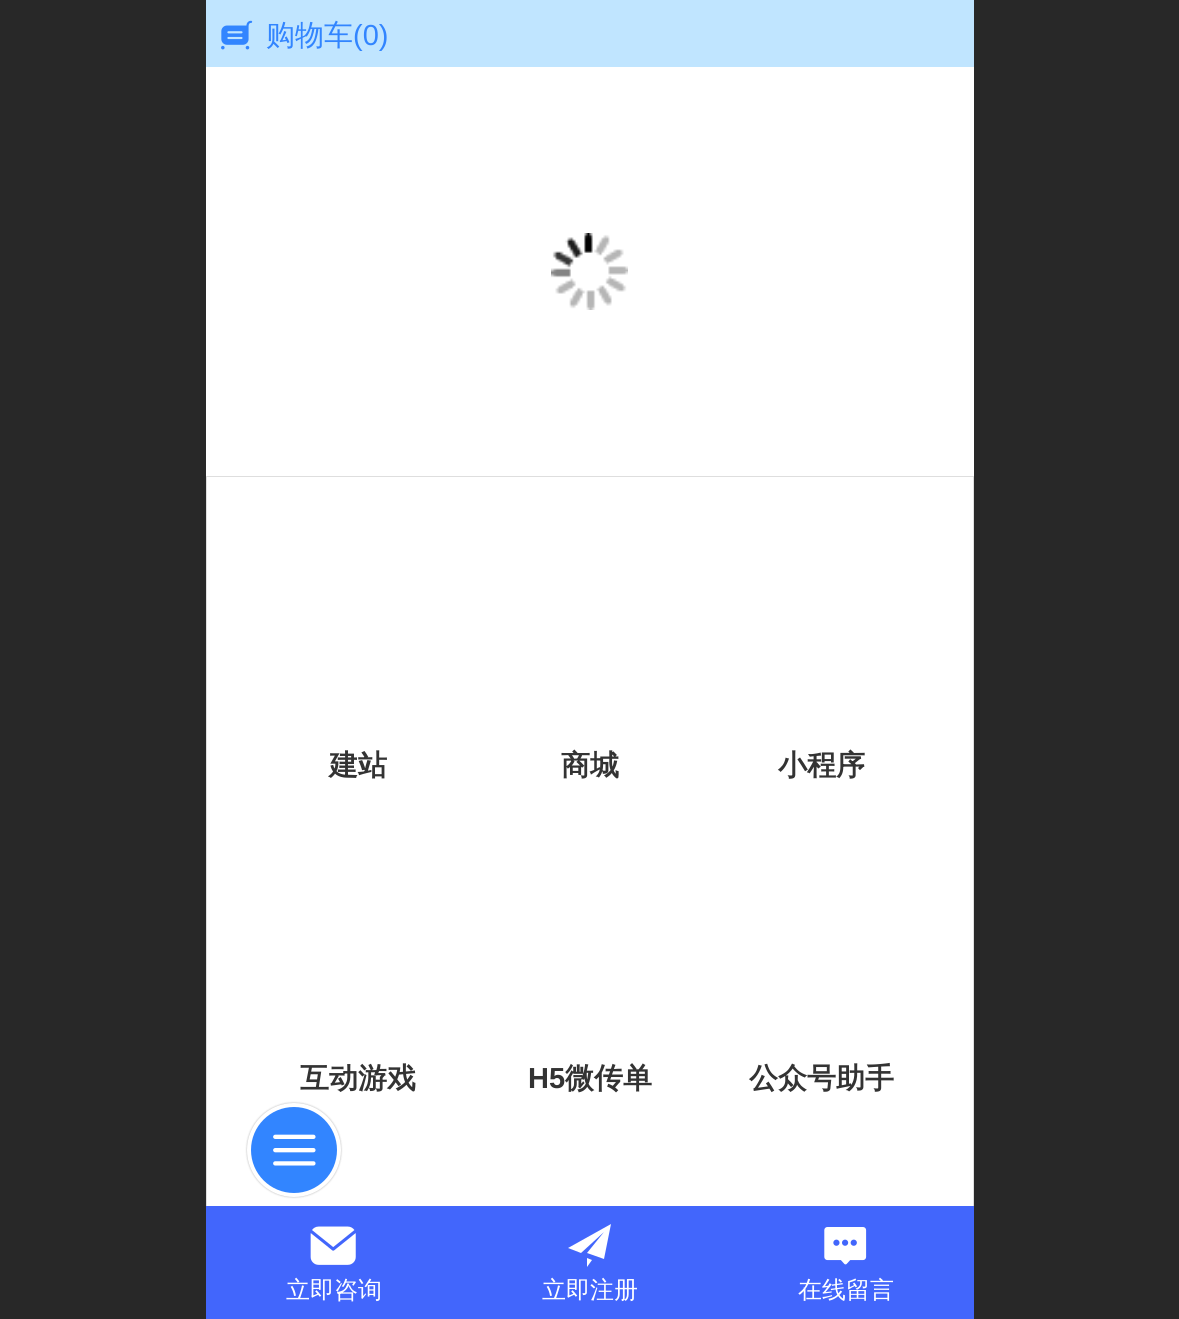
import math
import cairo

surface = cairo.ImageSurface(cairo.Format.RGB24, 1179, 1319)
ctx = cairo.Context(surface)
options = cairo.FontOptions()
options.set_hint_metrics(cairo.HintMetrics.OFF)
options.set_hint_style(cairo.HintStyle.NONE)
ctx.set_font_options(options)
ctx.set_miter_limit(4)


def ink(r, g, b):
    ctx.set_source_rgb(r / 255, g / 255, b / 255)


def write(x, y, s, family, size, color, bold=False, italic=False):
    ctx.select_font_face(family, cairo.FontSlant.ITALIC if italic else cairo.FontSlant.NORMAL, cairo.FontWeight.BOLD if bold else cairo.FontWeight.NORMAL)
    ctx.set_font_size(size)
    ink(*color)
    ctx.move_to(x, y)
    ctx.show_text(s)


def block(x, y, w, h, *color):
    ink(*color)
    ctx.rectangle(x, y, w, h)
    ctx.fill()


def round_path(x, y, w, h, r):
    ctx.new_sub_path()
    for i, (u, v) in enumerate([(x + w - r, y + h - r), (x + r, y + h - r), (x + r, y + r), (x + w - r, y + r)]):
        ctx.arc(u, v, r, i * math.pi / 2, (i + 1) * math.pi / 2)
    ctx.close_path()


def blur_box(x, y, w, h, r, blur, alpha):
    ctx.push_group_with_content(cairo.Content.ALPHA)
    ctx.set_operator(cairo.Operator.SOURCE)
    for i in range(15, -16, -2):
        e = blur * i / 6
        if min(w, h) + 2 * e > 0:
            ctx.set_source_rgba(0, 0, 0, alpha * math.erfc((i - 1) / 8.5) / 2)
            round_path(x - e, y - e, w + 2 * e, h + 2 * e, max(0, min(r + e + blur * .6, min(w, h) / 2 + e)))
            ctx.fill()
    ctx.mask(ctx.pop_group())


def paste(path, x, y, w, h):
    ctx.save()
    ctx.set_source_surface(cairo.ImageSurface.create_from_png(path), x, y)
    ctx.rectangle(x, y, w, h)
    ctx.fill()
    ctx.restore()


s1 = dict(family="WenQuanYi Zen Hei Medium", size=29, color=(50, 133, 255))
s2 = dict(family="Liberation Sans", size=29, color=(50, 133, 255))
s3 = dict(family="WenQuanYi Zen Hei", size=29, color=(51, 51, 51), bold=True)
s4 = dict(family="Liberation Sans", size=29, color=(51, 51, 51), bold=True)
s5 = dict(family="WenQuanYi Zen Hei Medium", size=24, color=(255, 255, 255))

ink(255, 255, 255)
ctx.paint()
block(0, 0, 206, 1319, 40, 40, 40)
block(206, 0, 768, 67, 192, 229, 255)
paste("pic1.png", 221, 20, 32, 30)
write(266, 45, "购物车", **s1)
write(353, 45, "(0)", **s2)
ctx.rectangle(206.5, 476.5, 767, 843)
ink(222, 222, 222)
ctx.set_line_width(1)
ctx.stroke()
ink(0, 0, 0)
blur_box(247, 1103, 94, 94, 47, 1, 0.3)
ink(50, 133, 255)
ctx.arc(294, 1150, 45, 0, 2 * math.pi)
ctx.fill_preserve()
ink(255, 255, 255)
ctx.set_line_width(4)
ctx.stroke()
paste("pic2.png", 273, 1134, 43, 32)
paste("pic3.png", 551, 233, 77, 77)
write(329, 775, "建站", **s3)
write(561, 775, "商城", **s3)
write(778, 775, "小程序", **s3)
write(300, 1088, "互动游戏", **s3)
write(528, 1088, "H5", **s4)
write(565, 1088, "微传单", **s3)
write(749, 1088, "公众号助手", **s3)
block(206, 1206, 768, 113, 66, 102, 252)
paste("pic4.png", 310, 1226, 46, 39)
write(286, 1298, "立即咨询", **s5)
ctx.new_path()
ctx.move_to(604, 1259)
ctx.line_to(587, 1253)
ctx.line_to(604, 1232)
ctx.line_to(581, 1253)
ctx.line_to(568, 1248)
ctx.line_to(611, 1224)
ctx.close_path()
ctx.move_to(587, 1267)
ctx.line_to(587, 1258)
ctx.line_to(592, 1260)
ctx.close_path()
ctx.fill()
write(542, 1298, "立即注册", **s5)
paste("pic5.png", 824, 1227, 43, 38)
write(798, 1298, "在线留言", **s5)
block(974, 0, 205, 1319, 40, 40, 40)
surface.write_to_png("screenshot.png")
